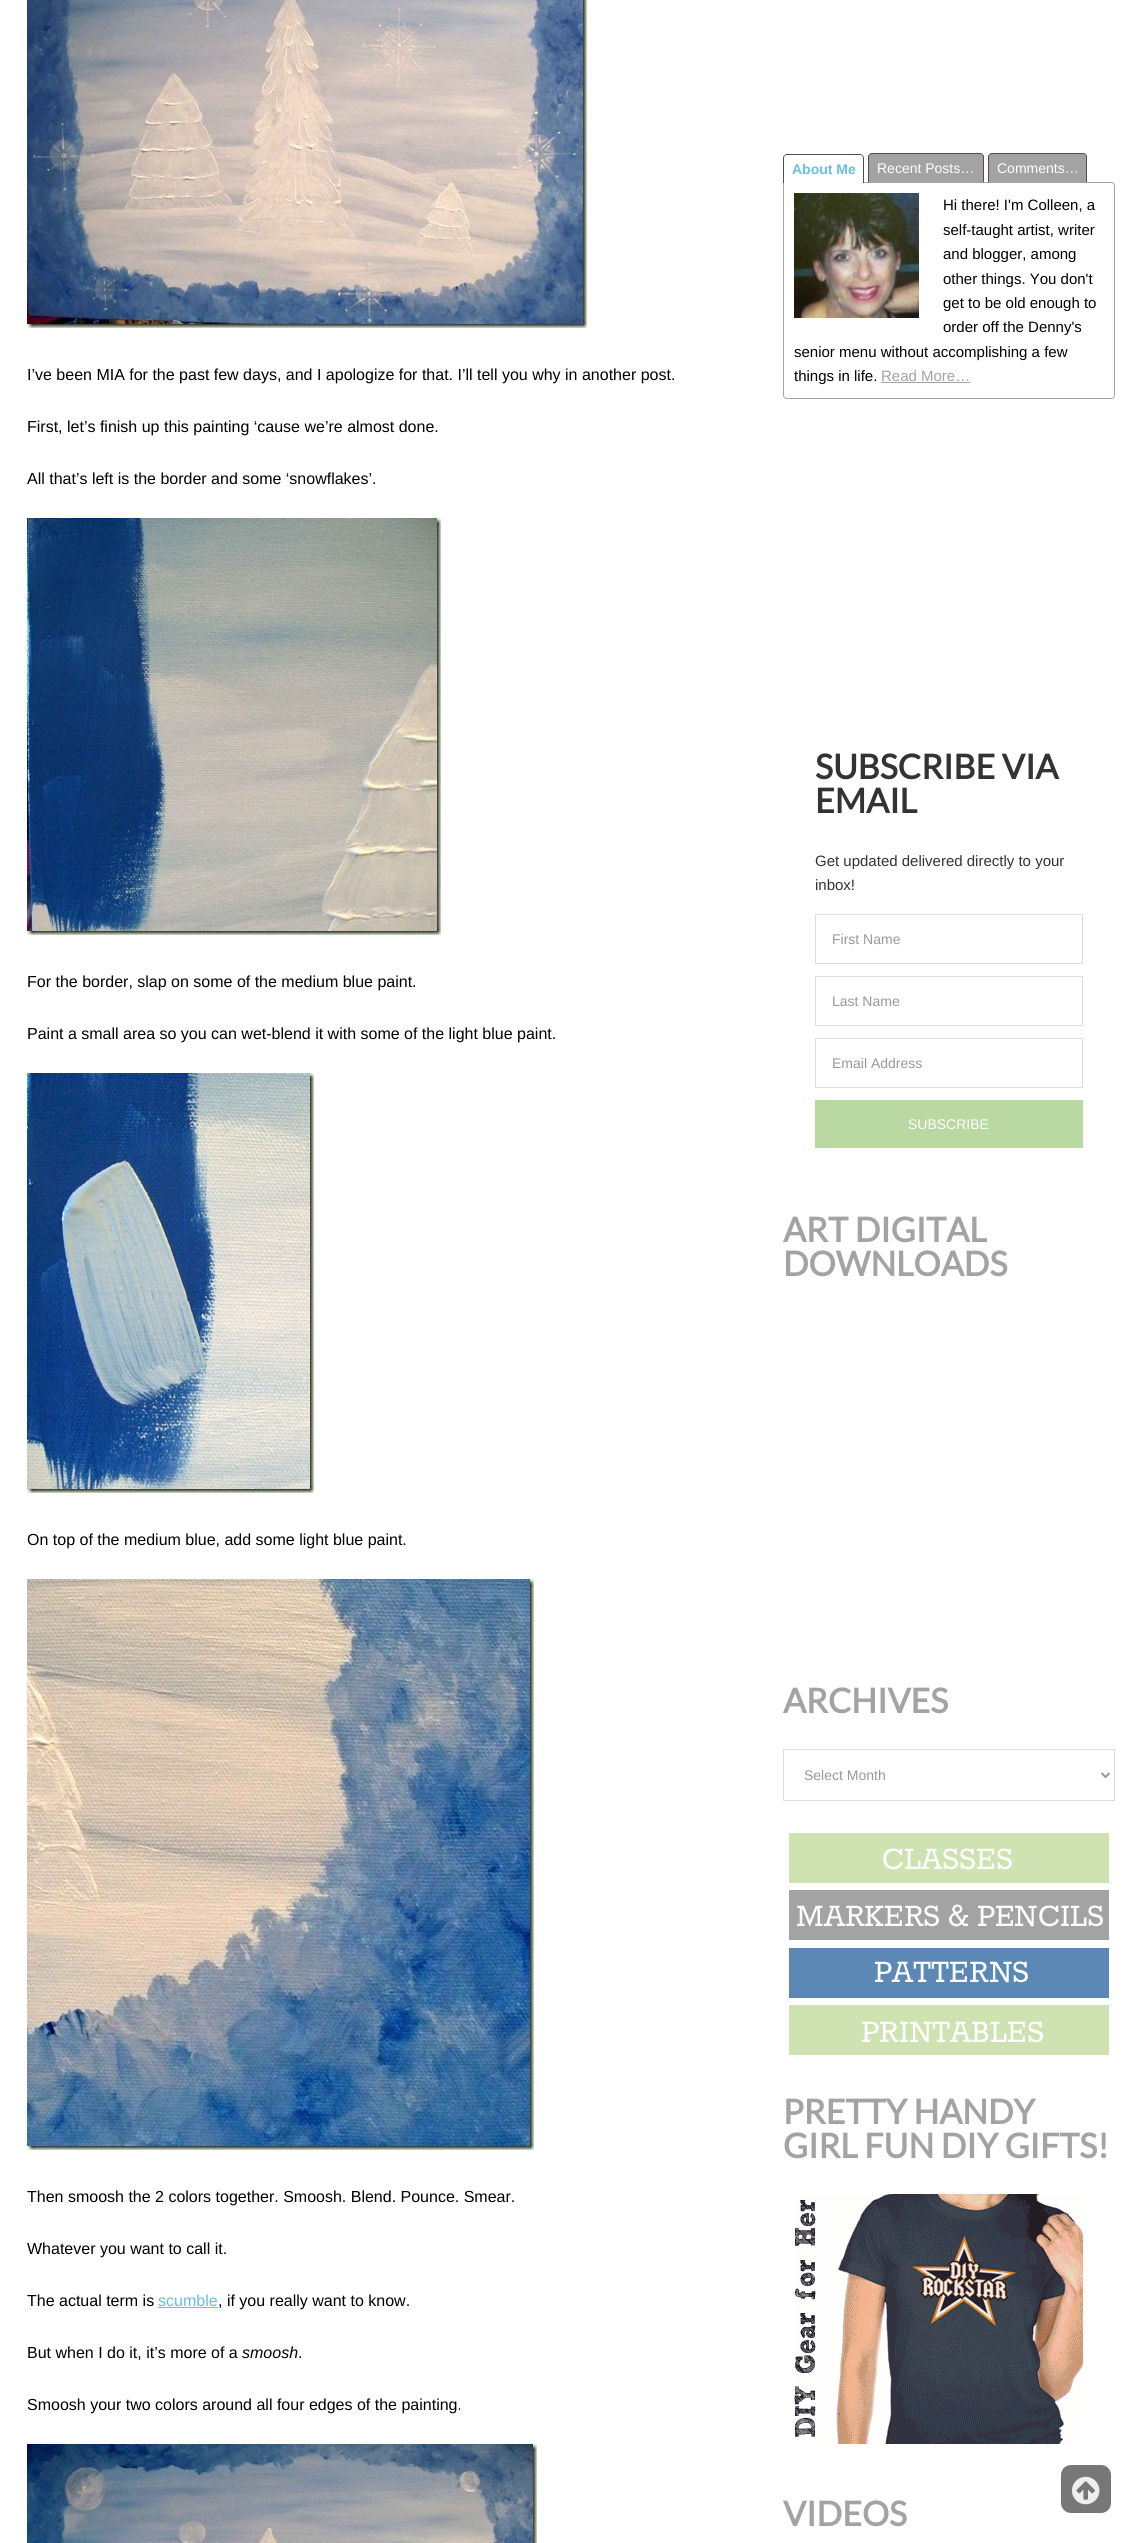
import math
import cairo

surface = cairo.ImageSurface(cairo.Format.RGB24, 1141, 2543)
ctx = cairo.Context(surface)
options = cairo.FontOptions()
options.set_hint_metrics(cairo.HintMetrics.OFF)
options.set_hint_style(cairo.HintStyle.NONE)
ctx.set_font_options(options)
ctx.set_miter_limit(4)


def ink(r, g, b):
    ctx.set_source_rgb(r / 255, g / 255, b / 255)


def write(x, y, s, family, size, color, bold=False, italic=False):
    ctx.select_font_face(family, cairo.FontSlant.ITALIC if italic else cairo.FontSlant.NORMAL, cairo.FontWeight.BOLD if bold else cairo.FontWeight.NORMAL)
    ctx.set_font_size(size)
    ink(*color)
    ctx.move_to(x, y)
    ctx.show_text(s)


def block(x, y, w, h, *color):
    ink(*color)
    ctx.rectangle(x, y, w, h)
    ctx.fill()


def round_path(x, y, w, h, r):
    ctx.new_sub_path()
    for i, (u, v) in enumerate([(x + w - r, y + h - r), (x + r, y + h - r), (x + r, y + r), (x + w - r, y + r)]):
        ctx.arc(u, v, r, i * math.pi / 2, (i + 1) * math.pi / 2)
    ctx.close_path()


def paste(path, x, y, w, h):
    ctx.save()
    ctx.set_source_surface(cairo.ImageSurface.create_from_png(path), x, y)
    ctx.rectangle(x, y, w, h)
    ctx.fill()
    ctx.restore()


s1 = dict(family="Liberation Sans", size=16, color=(0, 0, 0))
s2 = dict(family="Liberation Sans", size=16, color=(104, 190, 228))
s3 = dict(family="Liberation Sans", size=16, color=(0, 0, 0), italic=True)
s4 = dict(family="Liberation Sans", size=14, color=(104, 190, 228), bold=True)
s5 = dict(family="Liberation Sans", size=14, color=(255, 255, 255))
s6 = dict(family="Liberation Sans", size=15, color=(0, 0, 0))
s7 = dict(family="Liberation Sans", size=15, color=(163, 163, 163))
s8 = dict(family="Lato", size=34, color=(51, 51, 51), bold=True)
s9 = dict(family="Liberation Sans", size=15, color=(51, 51, 51))
s10 = dict(family="Liberation Sans", size=14, color=(153, 153, 153))
s11 = dict(family="Lato", size=34, color=(163, 163, 163), bold=True)

ink(255, 255, 255)
ctx.paint()
paste("pic1.png", 27, 0, 560, 328)
write(27, 380, "I’ve been MIA for the past few days, and I apologize for that. I’ll tell you why in another post.", **s1)
write(27, 432, "First, let’s finish up this painting ‘cause we’re almost done.", **s1)
write(27, 484, "All that’s left is the border and some ‘snowflakes’.", **s1)
paste("pic2.png", 27, 518, 414, 417)
write(27, 987, "For the border, slap on some of the medium blue paint.", **s1)
write(27, 1039, "Paint a small area so you can wet-blend it with some of the light blue paint.", **s1)
paste("pic3.png", 27, 1073, 287, 420)
write(27, 1545, "On top of the medium blue, add some light blue paint.", **s1)
paste("pic4.png", 27, 1579, 507, 571)
write(27, 2202, "Then smoosh the 2 colors together. Smoosh. Blend. Pounce. Smear.", **s1)
write(27, 2254, "Whatever you want to call it.", **s1)
write(27, 2306, "The actual term is", **s1)
write(158, 2306, "scumble", **s2)
block(158, 2307, 60, 1, 104, 190, 228)
write(218, 2306, ", if you really want to know.", **s1)
write(27, 2358, "But when I do it, it’s more of a", **s1)
write(242, 2358, "smoosh", **s3)
write(298, 2358, ".", **s1)
write(27, 2410, "Smoosh your two colors around all four edges of the painting.", **s1)
paste("pic5.png", 27, 2444, 510, 99)
ctx.new_path()
ctx.move_to(783.5, 182.5)
ctx.line_to(1111, 182.5)
ctx.curve_to(1113, 182.5, 1114.5, 184, 1114.5, 186)
ctx.line_to(1114.5, 395)
ctx.curve_to(1114.5, 397, 1113, 398.5, 1111, 398.5)
ctx.line_to(787, 398.5)
ctx.curve_to(785, 398.5, 783.5, 397, 783.5, 395)
ctx.close_path()
ink(163, 163, 163)
ctx.set_line_width(1)
ctx.stroke()
ink(255, 255, 255)
ctx.new_path()
ctx.move_to(787, 154)
ctx.line_to(860, 154)
ctx.curve_to(862, 154, 864, 156, 864, 158)
ctx.line_to(864, 183)
ctx.line_to(783, 183)
ctx.line_to(783, 158)
ctx.curve_to(783, 156, 785, 154, 787, 154)
ctx.close_path()
ctx.fill()
ink(87, 77, 80)
ctx.set_fill_rule(cairo.FillRule.EVEN_ODD)
ctx.new_path()
ctx.move_to(787, 154)
ctx.line_to(860, 154)
ctx.curve_to(862, 154, 864, 156, 864, 158)
ctx.line_to(864, 183)
ctx.line_to(783, 183)
ctx.line_to(783, 158)
ctx.curve_to(783, 156, 785, 154, 787, 154)
ctx.close_path()
ctx.move_to(787, 155)
ctx.line_to(860, 155)
ctx.curve_to(862, 155, 863, 156, 863, 158)
ctx.line_to(863, 183)
ctx.line_to(784, 183)
ctx.line_to(784, 158)
ctx.curve_to(784, 156, 785, 155, 787, 155)
ctx.close_path()
ctx.fill()
write(792, 174, "About Me", **s4)
ink(163, 163, 163)
ctx.new_path()
ctx.move_to(872, 153)
ctx.line_to(980, 153)
ctx.curve_to(982, 153, 984, 155, 984, 157)
ctx.line_to(984, 182)
ctx.line_to(868, 182)
ctx.line_to(868, 157)
ctx.curve_to(868, 155, 870, 153, 872, 153)
ctx.close_path()
ctx.fill()
ink(87, 77, 80)
ctx.new_path()
ctx.move_to(872, 153)
ctx.line_to(980, 153)
ctx.curve_to(982, 153, 984, 155, 984, 157)
ctx.line_to(984, 182)
ctx.line_to(868, 182)
ctx.line_to(868, 157)
ctx.curve_to(868, 155, 870, 153, 872, 153)
ctx.close_path()
ctx.move_to(872, 154)
ctx.line_to(980, 154)
ctx.curve_to(982, 154, 983, 155, 983, 157)
ctx.line_to(983, 182)
ctx.line_to(869, 182)
ctx.line_to(869, 157)
ctx.curve_to(869, 155, 870, 154, 872, 154)
ctx.close_path()
ctx.fill()
write(877, 173, "Recent Posts…", **s5)
ink(163, 163, 163)
ctx.new_path()
ctx.move_to(992, 153)
ctx.line_to(1083, 153)
ctx.curve_to(1085, 153, 1087, 155, 1087, 157)
ctx.line_to(1087, 182)
ctx.line_to(988, 182)
ctx.line_to(988, 157)
ctx.curve_to(988, 155, 990, 153, 992, 153)
ctx.close_path()
ctx.fill()
ink(87, 77, 80)
ctx.new_path()
ctx.move_to(992, 153)
ctx.line_to(1083, 153)
ctx.curve_to(1085, 153, 1087, 155, 1087, 157)
ctx.line_to(1087, 182)
ctx.line_to(988, 182)
ctx.line_to(988, 157)
ctx.curve_to(988, 155, 990, 153, 992, 153)
ctx.close_path()
ctx.move_to(992, 154)
ctx.line_to(1083, 154)
ctx.curve_to(1085, 154, 1086, 155, 1086, 157)
ctx.line_to(1086, 182)
ctx.line_to(989, 182)
ctx.line_to(989, 157)
ctx.curve_to(989, 155, 990, 154, 992, 154)
ctx.close_path()
ctx.fill()
write(997, 173, "Comments…", **s5)
paste("pic6.png", 794, 193, 125, 125)
write(943, 210, "Hi there! I'm Colleen, a", **s6)
write(943, 235, "self-taught artist, writer", **s6)
write(943, 259, "and blogger, among", **s6)
write(943, 284, "other things. You don't", **s6)
write(943, 308, "get to be old enough to", **s6)
write(943, 332, "order off the Denny's", **s6)
write(794, 357, "senior menu without accomplishing a few", **s6)
write(794, 381, "things in life.", **s6)
write(881, 381, "Read More…", **s7)
block(881, 382, 89, 1, 163, 163, 163)
write(815, 779, "SUBSCRIBE VIA", **s8)
write(815, 813, "EMAIL", **s8)
write(815, 866, "Get updated delivered directly to your", **s9)
write(815, 890, "inbox!", **s9)
ctx.rectangle(815.5, 914.5, 267, 49)
ink(221, 221, 221)
ctx.stroke()
write(832, 944, "First Name", **s10)
ctx.rectangle(815.5, 976.5, 267, 49)
ink(221, 221, 221)
ctx.stroke()
write(832, 1006, "Last Name", **s10)
ctx.rectangle(815.5, 1038.5, 267, 49)
ink(221, 221, 221)
ctx.stroke()
write(832, 1068, "Email Address", **s10)
block(815, 1100, 268, 48, 186, 216, 162)
write(908, 1129, "SUBSCRIBE", **s5)
write(783, 1242, "ART DIGITAL", **s11)
write(783, 1276, "DOWNLOADS", **s11)
write(783, 1713, "ARCHIVES", **s11)
ctx.rectangle(783.5, 1749.5, 331, 51)
ink(221, 221, 221)
ctx.stroke()
ctx.new_path()
ctx.move_to(1101.5, 1773)
ctx.line_to(1105.5, 1777)
ctx.line_to(1109.5, 1773)
ink(153, 153, 153)
ctx.set_line_width(2)
ctx.stroke()
write(804, 1780, "Select Month", **s10)
paste("pic7.png", 789, 1833, 320, 50)
paste("pic8.png", 789, 1890, 320, 50)
paste("pic9.png", 789, 1948, 320, 50)
paste("pic10.png", 789, 2005, 320, 50)
write(783, 2124, "PRETTY HANDY", **s11)
write(783, 2158, "GIRL FUN DIY GIFTS!", **s11)
paste("pic11.png", 794, 2194, 289, 250)
write(783, 2526, "VIDEOS", **s11)
ink(119, 119, 119)
round_path(1061, 2465, 50, 48, 10)
ctx.fill()
paste("pic12.png", 1072, 2476, 28, 29)
surface.write_to_png("screenshot.png")
